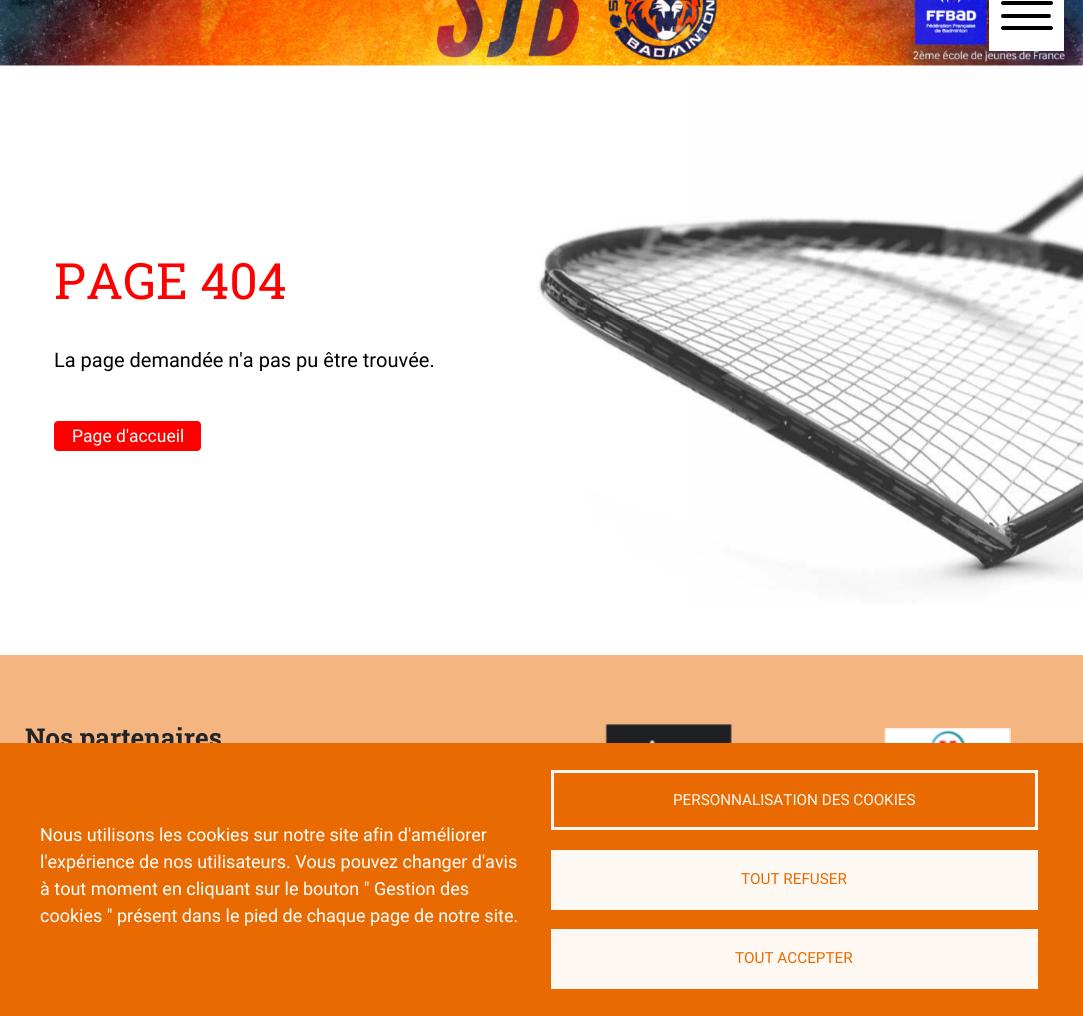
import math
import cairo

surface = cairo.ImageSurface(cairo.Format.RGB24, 1083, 1016)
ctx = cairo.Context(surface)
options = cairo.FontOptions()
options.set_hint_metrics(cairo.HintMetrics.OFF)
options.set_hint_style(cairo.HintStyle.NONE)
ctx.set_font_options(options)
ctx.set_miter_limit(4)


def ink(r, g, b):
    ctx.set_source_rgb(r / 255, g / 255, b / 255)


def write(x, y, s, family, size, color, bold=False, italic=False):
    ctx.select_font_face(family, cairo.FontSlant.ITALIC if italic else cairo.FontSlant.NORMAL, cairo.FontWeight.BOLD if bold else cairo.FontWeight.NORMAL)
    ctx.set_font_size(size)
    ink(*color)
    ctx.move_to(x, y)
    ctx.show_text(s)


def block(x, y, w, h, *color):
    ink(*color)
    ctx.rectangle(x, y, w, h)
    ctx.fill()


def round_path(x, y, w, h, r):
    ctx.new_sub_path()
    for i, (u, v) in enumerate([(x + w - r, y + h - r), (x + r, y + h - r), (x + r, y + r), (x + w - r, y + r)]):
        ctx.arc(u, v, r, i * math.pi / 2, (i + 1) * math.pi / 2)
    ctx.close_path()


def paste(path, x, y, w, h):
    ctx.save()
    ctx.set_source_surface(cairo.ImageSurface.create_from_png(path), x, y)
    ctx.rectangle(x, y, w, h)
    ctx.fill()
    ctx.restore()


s1 = dict(family="Roboto Slab", size=50, color=(255, 0, 0))
s2 = dict(family="Roboto", size=20, color=(0, 0, 0))
s3 = dict(family="Roboto", size=17.5, color=(255, 255, 255))
s4 = dict(family="Roboto Slab", size=26, color=(33, 37, 41), bold=True)
s5 = dict(family="Roboto", size=18, color=(255, 255, 255))
s6 = dict(family="Roboto", size=15.25, color=(254, 248, 242))
s7 = dict(family="Roboto", size=15.25, color=(233, 106, 1))

ink(255, 255, 255)
ctx.paint()
paste("pic1.png", 0, 0, 1083, 66)
block(989, 0, 75, 51, 255, 255, 255)
ink(0, 0, 0)
round_path(1001, 14, 50, 4, 2)
ctx.fill()
round_path(1001, 1, 52, 4, 2)
ctx.fill()
round_path(1001, 26, 52, 4, 2)
ctx.fill()
paste("pic2.png", 0, 65, 1083, 539)
write(54, 299, "PAGE 404", **s1)
write(54, 367, "La page demandée n'a pas pu être trouvée.", **s2)
ink(255, 0, 0)
round_path(54, 421, 147, 30, 4)
ctx.fill()
write(72, 442, "Page d'accueil", **s3)
block(0, 655, 1083, 88, 244, 181, 128)
write(25, 747, "Nos partenaires", **s4)
paste("pic3.png", 605, 724, 127, 19)
paste("pic4.png", 884, 728, 127, 15)
block(0, 743, 1083, 273, 233, 106, 1)
write(40, 841, "Nous utilisons les cookies sur notre site afin d'améliorer", **s5)
write(40, 868, "l'expérience de nos utilisateurs. Vous pouvez changer d'avis", **s5)
write(40, 895, "à tout moment en cliquant sur le bouton \" Gestion des", **s5)
write(40, 922, "cookies \" présent dans le pied de chaque page de notre site.", **s5)
ctx.rectangle(552.5, 771.5, 484, 57)
ink(254, 248, 242)
ctx.set_line_width(3)
ctx.stroke()
write(673, 805, "PERSONNALISATION DES COOKIES", **s6)
block(551, 850, 487, 60, 254, 248, 242)
write(741, 884, "TOUT REFUSER", **s7)
block(551, 929, 487, 60, 254, 248, 242)
write(735, 963, "TOUT ACCEPTER", **s7)
surface.write_to_png("screenshot.png")
